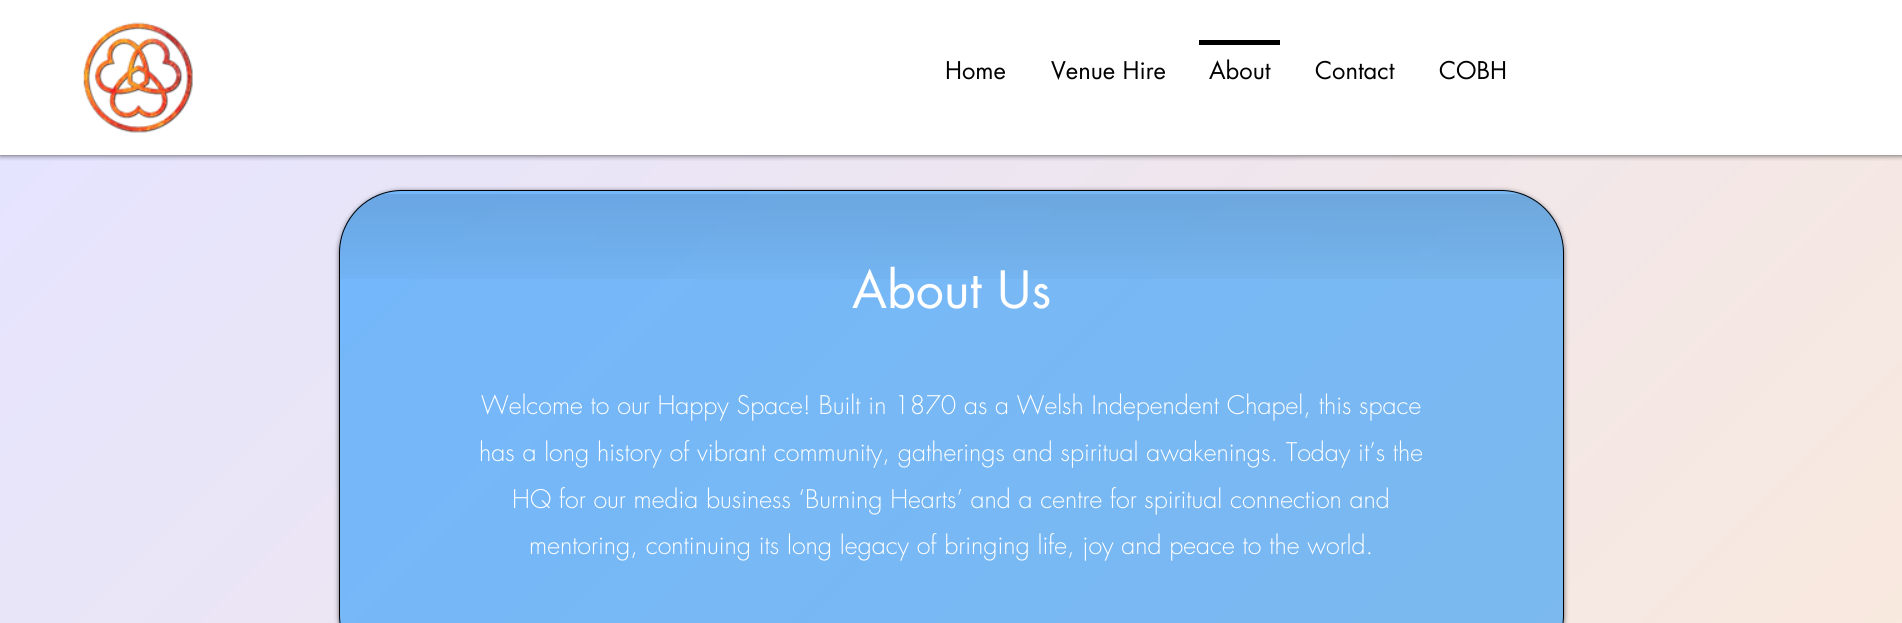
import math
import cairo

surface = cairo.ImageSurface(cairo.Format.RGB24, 1902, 623)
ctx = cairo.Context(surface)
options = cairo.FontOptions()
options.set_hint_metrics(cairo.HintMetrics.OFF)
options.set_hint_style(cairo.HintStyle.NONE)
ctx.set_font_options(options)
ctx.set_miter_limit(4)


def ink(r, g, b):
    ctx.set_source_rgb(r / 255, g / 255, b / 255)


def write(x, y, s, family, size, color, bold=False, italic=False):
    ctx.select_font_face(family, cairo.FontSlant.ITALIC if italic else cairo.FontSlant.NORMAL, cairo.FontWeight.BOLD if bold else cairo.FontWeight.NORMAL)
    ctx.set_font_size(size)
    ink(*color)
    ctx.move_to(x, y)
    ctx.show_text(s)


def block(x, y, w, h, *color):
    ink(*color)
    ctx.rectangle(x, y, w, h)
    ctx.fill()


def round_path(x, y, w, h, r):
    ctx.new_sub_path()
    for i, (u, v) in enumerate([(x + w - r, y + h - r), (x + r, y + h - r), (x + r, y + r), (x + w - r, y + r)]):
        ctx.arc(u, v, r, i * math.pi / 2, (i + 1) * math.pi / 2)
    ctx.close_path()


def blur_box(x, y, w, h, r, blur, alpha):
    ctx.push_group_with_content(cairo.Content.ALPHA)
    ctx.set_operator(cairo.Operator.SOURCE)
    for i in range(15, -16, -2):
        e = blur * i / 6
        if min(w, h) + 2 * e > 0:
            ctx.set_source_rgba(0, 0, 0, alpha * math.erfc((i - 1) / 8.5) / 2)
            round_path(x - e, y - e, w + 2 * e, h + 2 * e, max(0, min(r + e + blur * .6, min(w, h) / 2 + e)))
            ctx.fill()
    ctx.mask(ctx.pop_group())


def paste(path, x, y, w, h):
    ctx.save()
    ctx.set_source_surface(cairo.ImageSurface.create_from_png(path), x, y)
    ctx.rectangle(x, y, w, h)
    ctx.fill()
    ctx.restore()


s1 = dict(family="futura", size=23.75, color=(0, 0, 0))
s2 = dict(family="futura", size=50, color=(255, 255, 255))
s3 = dict(family="futura Light", size=25, color=(255, 255, 255))

ink(255, 255, 255)
ctx.paint()
gradient = cairo.LinearGradient(163, -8, 1739, 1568)
gradient.add_color_stop_rgba(0, 0.898, 0.894, 1, 1)
gradient.add_color_stop_rgba(1, 1, 0.918, 0.827, 1)
ctx.set_source(gradient)
ctx.rectangle(0, 155, 1902, 468)
ctx.fill()
ctx.save()
ctx.rectangle(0, 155, 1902, 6)
ctx.clip()
ink(0, 0, 0)
blur_box(0, 0, 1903, 155, 0, 3, 0.7)
ctx.restore()
paste("pic1.png", 83, 22, 110, 111)
write(945, 79, "Home", **s1)
write(1051, 79, "Venue Hire", **s1)
block(1199, 40, 81, 5, 0, 0, 0)
write(1209, 79, "About", **s1)
write(1315, 79, "Contact", **s1)
write(1439, 79, "COBH", **s1)
ctx.save()
ctx.set_fill_rule(cairo.FillRule.EVEN_ODD)
ctx.new_path()
ctx.move_to(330, 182)
ctx.line_to(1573, 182)
ctx.line_to(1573, 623)
ctx.line_to(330, 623)
ctx.close_path()
ctx.move_to(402, 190)
ctx.line_to(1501, 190)
ctx.curve_to(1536, 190, 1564, 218, 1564, 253)
ctx.line_to(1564, 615)
ctx.curve_to(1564, 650, 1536, 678, 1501, 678)
ctx.line_to(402, 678)
ctx.curve_to(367, 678, 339, 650, 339, 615)
ctx.line_to(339, 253)
ctx.curve_to(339, 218, 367, 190, 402, 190)
ctx.close_path()
ctx.clip()
ink(0, 0, 0)
blur_box(339, 191, 1225, 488, 63, 2.5, 0.6)
ctx.restore()
ctx.set_source_rgba(0, 0.541, 0.988, 0.5)
round_path(339, 190, 1225, 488, 63)
ctx.fill()
paste("pic2.png", 339, 194, 1225, 85)
round_path(339.5, 190.5, 1224, 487, 62.5)
ink(0, 0, 0)
ctx.set_line_width(1)
ctx.stroke()
write(852, 308, "About Us", **s2)
write(481, 414, "Welcome to our Happy Space! Built in 1870 as a Welsh Independent Chapel, this space", **s3)
write(479, 461, "has a long history of vibrant community, gatherings and spiritual awakenings. Today it’s the", **s3)
write(512, 508, "HQ for our media business ‘Burning Hearts’ and a centre for spiritual connection and", **s3)
write(529, 554, "mentoring, continuing its long legacy of bringing life, joy and peace to the world.", **s3)
surface.write_to_png("screenshot.png")
